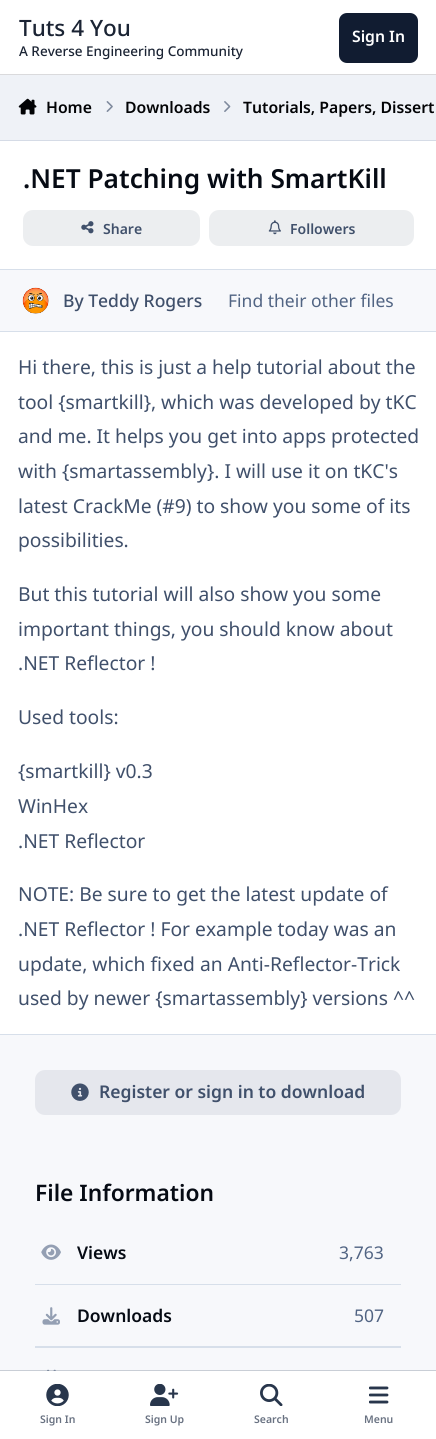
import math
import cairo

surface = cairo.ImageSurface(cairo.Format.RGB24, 436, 1439)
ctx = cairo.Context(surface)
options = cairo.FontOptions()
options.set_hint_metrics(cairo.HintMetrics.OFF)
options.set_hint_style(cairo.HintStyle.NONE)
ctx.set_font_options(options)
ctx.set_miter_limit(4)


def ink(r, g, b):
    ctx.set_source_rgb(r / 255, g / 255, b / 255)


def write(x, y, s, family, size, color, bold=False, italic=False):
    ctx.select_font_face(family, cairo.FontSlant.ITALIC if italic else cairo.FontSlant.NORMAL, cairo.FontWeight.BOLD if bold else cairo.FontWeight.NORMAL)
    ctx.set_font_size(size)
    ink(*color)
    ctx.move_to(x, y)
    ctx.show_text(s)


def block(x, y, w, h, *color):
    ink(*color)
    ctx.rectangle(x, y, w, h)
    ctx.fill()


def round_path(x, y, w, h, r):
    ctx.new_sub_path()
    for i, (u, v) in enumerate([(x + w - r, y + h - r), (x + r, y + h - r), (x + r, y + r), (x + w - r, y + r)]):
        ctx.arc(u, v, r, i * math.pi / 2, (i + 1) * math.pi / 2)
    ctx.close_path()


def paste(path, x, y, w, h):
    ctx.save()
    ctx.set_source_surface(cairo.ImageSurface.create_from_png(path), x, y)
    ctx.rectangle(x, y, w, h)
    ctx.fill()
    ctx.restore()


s1 = dict(family="Noto Sans Medium", size=22.5, color=(27, 36, 52))
s2 = dict(family="Noto Sans Medium", size=13.5, color=(27, 36, 52))
s3 = dict(family="Noto Sans SemiBold", size=15.75, color=(255, 255, 255))
s4 = dict(family="Noto Sans SemiBold", size=15.75, color=(2, 3, 5))
s5 = dict(family="Noto Sans SemiBold", size=26.25, color=(6, 11, 20))
s6 = dict(family="Noto Sans SemiBold", size=14, color=(64, 80, 107))
s7 = dict(family="Noto Sans Medium", size=17.5, color=(64, 80, 107))
s8 = dict(family="Noto Sans", size=17.5, color=(81, 100, 131))
s9 = dict(family="Noto Sans", size=19.25, color=(64, 80, 107))
s10 = dict(family="Noto Sans SemiBold", size=17.5, color=(64, 80, 107))
s11 = dict(family="Noto Sans SemiBold", size=22.75, color=(6, 11, 20))
s12 = dict(family="Noto Sans SemiBold", size=17.5, color=(6, 11, 20))
s13 = dict(family="Noto Sans SemiBold", size=10.5, color=(105, 114, 130))

ink(239, 242, 247)
ctx.paint()
block(0, 0, 436, 74, 255, 255, 255)
block(0, 74, 436, 1, 218, 218, 220)
write(19, 36, "Tuts 4 You", **s1)
write(19, 56, "A Reverse Engineering Community", **s2)
ink(17, 28, 49)
round_path(339, 13, 79, 50, 8)
ctx.fill()
write(352, 42, "Sign In", **s3)
paste("pic1.png", 18, 98, 19, 17)
write(46, 113, "Home", **s4)
paste("pic2.png", 106, 101, 7, 11)
write(125, 113, "Downloads", **s4)
paste("pic3.png", 224, 101, 7, 11)
write(243, 113, "Tutorials, Papers, Dissert", **s4)
block(0, 141, 436, 893, 255, 255, 255)
block(0, 140, 436, 1, 213, 219, 230)
block(0, 331, 436, 1, 215, 223, 234)
write(23, 188, ".NET Patching with SmartKill", **s5)
ink(236, 238, 240)
round_path(23, 210, 177, 36, 10)
ctx.fill()
paste("pic4.png", 81, 221, 13, 13)
write(103, 234, "Share", **s6)
ink(236, 238, 240)
round_path(209, 210, 205, 36, 10)
ctx.fill()
paste("pic5.png", 268, 220, 13, 15)
write(290, 234, "Followers", **s6)
block(0, 270, 436, 61, 247, 248, 251)
block(0, 269, 436, 1, 215, 223, 234)
ink(229, 234, 242)
ctx.new_path()
ctx.arc(36, 301, 13, 0, 2 * math.pi)
ctx.fill()
paste("pic6.png", 22, 287, 27, 27)
write(63, 307, "By Teddy Rogers", **s7)
write(228, 307, "Find their other files", **s8)
block(0, 1034, 436, 1, 215, 223, 234)
write(18, 374, "Hi there, this is just a help tutorial about the", **s9)
write(18, 409, "tool {smartkill}, which was developed by tKC", **s9)
write(18, 443, "and me. It helps you get into apps protected", **s9)
write(18, 478, "with {smartassembly}. I will use it on tKC's", **s9)
write(18, 513, "latest CrackMe (#9) to show you some of its", **s9)
write(18, 547, "possibilities.", **s9)
write(18, 601, "But this tutorial will also show you some", **s9)
write(18, 636, "important things, you should know about", **s9)
write(18, 670, ".NET Reflector !", **s9)
write(18, 724, "Used tools:", **s9)
write(18, 778, "{smartkill} v0.3", **s9)
write(18, 813, "WinHex", **s9)
write(18, 848, ".NET Reflector", **s9)
write(18, 901, "NOTE: Be sure to get the latest update of", **s9)
write(18, 936, ".NET Reflector ! For example today was an", **s9)
write(18, 971, "update, which fixed an Anti-Reflector-Trick", **s9)
write(18, 1005, "used by newer {smartassembly} versions ^^", **s9)
block(0, 1035, 436, 336, 247, 248, 251)
ink(229, 231, 237)
round_path(35, 1070, 366, 45, 10)
ctx.fill()
paste("pic7.png", 71, 1083, 18, 18)
write(99, 1098, "Register or sign in to download", **s10)
write(35, 1201, "File Information", **s11)
paste("pic8.png", 41, 1244, 20, 16)
write(77, 1259, "Views", **s12)
write(339, 1259, "3,763", **s8)
ctx.save()
ctx.rectangle(35, 1221, 366, 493)
ctx.clip()
ctx.rectangle(34.5, 1284.5, 368, 63)
ink(215, 223, 234)
ctx.set_line_width(1)
ctx.stroke()
ctx.restore()
paste("pic9.png", 42, 1307, 18, 18)
write(77, 1322, "Downloads", **s12)
write(354, 1322, "507", **s8)
ctx.save()
ctx.rectangle(35, 1221, 366, 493)
ctx.clip()
ctx.rectangle(34.5, 1346.5, 368, 63)
ink(215, 223, 234)
ctx.set_line_width(1)
ctx.stroke()
ctx.restore()
paste("pic10.png", 47, 1369, 9, 2)
ctx.set_source_rgba(0.251, 0.314, 0.42, 0.25)
ctx.rectangle(0, 1370, 436, 1)
ctx.fill()
block(0, 1371, 436, 68, 255, 255, 255)
paste("pic11.png", 46, 1384, 23, 22)
write(40, 1423, "Sign In", **s13)
paste("pic12.png", 150, 1384, 29, 22)
write(145, 1423, "Sign Up", **s13)
paste("pic13.png", 260, 1384, 23, 22)
write(254, 1423, "Search", **s13)
paste("pic14.png", 369, 1386, 20, 18)
write(364, 1423, "Menu", **s13)
surface.write_to_png("screenshot.png")
